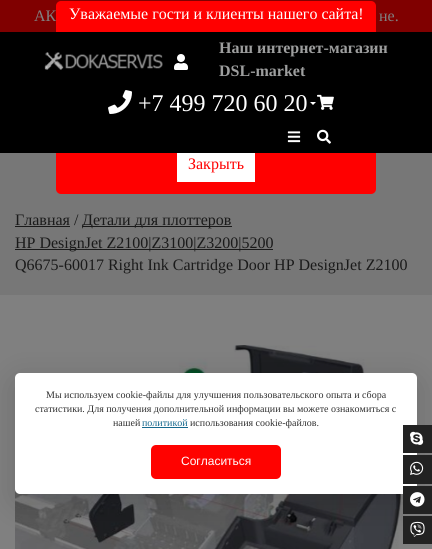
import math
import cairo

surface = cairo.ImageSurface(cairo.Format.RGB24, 432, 549)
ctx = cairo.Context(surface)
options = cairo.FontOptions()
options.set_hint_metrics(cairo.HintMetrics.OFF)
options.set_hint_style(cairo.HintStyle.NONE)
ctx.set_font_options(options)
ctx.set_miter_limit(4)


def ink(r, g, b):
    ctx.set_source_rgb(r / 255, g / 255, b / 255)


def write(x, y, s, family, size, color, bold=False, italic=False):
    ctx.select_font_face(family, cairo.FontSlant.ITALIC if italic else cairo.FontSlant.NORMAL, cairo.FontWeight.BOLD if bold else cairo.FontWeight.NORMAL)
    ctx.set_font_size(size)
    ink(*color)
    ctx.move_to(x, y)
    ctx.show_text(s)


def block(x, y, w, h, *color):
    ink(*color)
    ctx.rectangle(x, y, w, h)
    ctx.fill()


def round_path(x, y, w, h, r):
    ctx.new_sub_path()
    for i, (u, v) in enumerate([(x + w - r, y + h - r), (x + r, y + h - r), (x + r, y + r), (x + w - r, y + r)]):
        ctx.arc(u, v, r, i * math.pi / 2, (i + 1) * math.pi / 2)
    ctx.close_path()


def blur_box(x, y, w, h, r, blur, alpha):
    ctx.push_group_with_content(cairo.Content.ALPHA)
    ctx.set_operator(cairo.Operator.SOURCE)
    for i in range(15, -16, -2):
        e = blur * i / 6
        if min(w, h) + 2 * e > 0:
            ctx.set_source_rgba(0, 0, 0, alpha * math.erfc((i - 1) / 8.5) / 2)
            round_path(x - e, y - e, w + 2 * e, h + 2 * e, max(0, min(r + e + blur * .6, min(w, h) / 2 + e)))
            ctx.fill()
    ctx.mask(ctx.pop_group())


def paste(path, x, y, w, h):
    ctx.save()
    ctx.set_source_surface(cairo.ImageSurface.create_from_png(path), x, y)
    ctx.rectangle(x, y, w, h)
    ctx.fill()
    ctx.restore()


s1 = dict(family="Liberation Serif", size=16, color=(255, 255, 255))
s2 = dict(family="Liberation Serif", size=16, color=(255, 0, 0))
s3 = dict(family="Liberation Serif", size=16, color=(157, 158, 158), bold=True)
s4 = dict(family="Liberation Serif", size=24, color=(255, 255, 255))
s5 = dict(family="Liberation Serif", size=16, color=(26, 26, 26))
s6 = dict(family="Liberation Serif", size=16, color=(128, 128, 128))
s7 = dict(family="Liberation Serif", size=10, color=(48, 48, 48))
s8 = dict(family="Liberation Serif", size=10, color=(21, 105, 142))
s9 = dict(family="Liberation Sans", size=12, color=(255, 255, 255))

ink(128, 128, 128)
ctx.paint()
block(0, 153, 432, 142, 119, 119, 119)
block(0, 0, 432, 32, 128, 0, 0)
ink(255, 0, 0)
round_path(56, 1, 320, 193, 5)
ctx.fill()
write(69, 19, "Уважаемые гости и клиенты нашего сайта!", **s1)
block(177, 153, 78, 29, 255, 255, 255)
write(188, 169, "Закрыть", **s2)
block(0, 32, 432, 121, 0, 0, 0)
paste("pic1.png", 44, 52, 119, 18)
paste("pic2.png", 174, 54, 14, 16)
write(219, 53, "Наш интернет-магазин", **s3)
write(219, 76, "DSL-market", **s3)
paste("pic3.png", 108, 90, 24, 24)
write(138, 111, "+7 499 720 60 20", **s4)
ctx.new_path()
ctx.move_to(310, 102)
ctx.line_to(316, 102)
ctx.line_to(313, 105)
ctx.close_path()
ctx.fill()
paste("pic4.png", 317, 94, 17, 16)
paste("pic5.png", 287, 131, 14, 12)
paste("pic6.png", 317, 129, 14, 15)
write(15, 225, "Главная /", **s5)
block(15, 226, 55, 1, 26, 26, 26)
block(82, 226, 150, 1, 26, 26, 26)
write(82, 225, "Детали для плоттеров", **s5)
block(15, 249, 258, 1, 26, 26, 26)
write(15, 248, "HP DesignJet Z2100|Z3100|Z3200|5200", **s5)
write(15, 270, "Q6675-60017 Right Ink Cartridge Door HP DesignJet Z2100", **s5)
paste("pic7.png", 15, 345, 402, 204)
write(34, 21, "АК", **s6)
write(379, 21, "не.", **s6)
ink(0, 0, 0)
blur_box(15, 381, 402, 121, 5, 16, 0.15)
ink(255, 255, 255)
round_path(15, 373, 402, 121, 5)
ctx.fill()
write(46, 398, "Мы используем cookie-файлы для улучшения пользовательского опыта и сбора", **s7)
write(35, 412, "статистики. Для получения дополнительной информации вы можете ознакомиться с", **s7)
write(113, 426, "нашей", **s7)
write(142, 426, "политикой", **s8)
block(142, 427, 46, 1, 21, 105, 142)
write(190, 426, "использования cookie-файлов.", **s7)
ink(255, 2, 0)
round_path(151, 445, 130, 34, 5)
ctx.fill()
write(181, 465, "Согласиться", **s9)
block(403, 425, 29, 28, 34, 34, 34)
paste("pic8.png", 410, 431, 14, 14)
block(403, 455, 29, 29, 34, 34, 34)
paste("pic9.png", 410, 461, 14, 14)
block(403, 486, 29, 28, 34, 34, 34)
paste("pic10.png", 410, 492, 15, 15)
block(403, 516, 29, 28, 34, 34, 34)
paste("pic11.png", 410, 521, 15, 16)
surface.write_to_png("screenshot.png")
